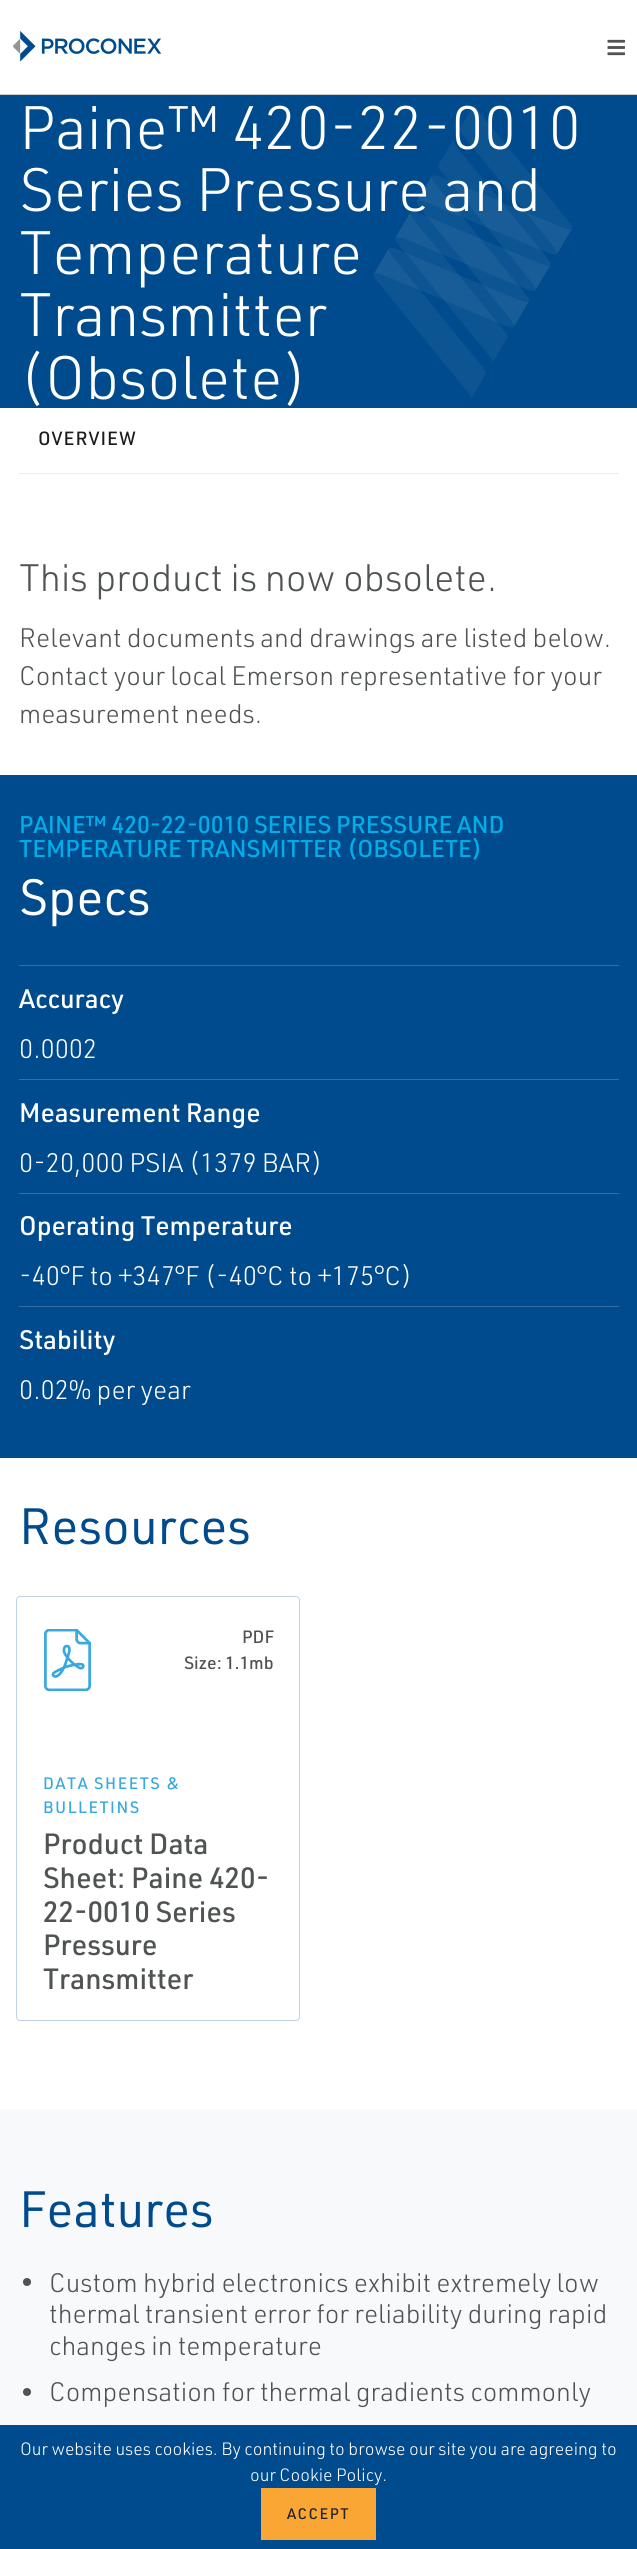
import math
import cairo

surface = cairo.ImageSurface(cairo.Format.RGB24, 637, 2549)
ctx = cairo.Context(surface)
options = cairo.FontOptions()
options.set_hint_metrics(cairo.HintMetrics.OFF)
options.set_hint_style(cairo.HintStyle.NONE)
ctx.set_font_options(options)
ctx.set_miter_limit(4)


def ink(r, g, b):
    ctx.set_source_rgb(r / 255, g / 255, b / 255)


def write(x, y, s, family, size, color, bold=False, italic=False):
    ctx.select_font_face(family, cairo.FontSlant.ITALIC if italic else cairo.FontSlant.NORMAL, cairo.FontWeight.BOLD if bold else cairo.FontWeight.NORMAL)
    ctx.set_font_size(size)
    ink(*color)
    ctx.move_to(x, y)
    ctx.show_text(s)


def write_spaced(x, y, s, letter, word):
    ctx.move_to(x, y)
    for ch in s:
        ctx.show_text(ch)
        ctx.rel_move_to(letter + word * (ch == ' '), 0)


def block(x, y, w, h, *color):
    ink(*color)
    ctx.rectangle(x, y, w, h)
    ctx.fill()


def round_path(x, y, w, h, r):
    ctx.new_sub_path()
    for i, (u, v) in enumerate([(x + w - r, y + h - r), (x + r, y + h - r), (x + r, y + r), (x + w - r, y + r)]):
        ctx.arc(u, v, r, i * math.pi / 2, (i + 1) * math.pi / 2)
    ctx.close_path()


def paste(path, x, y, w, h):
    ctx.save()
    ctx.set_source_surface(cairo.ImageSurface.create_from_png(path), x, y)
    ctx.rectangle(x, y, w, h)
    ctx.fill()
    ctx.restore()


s1 = dict(family="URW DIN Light", size=60, color=(255, 255, 255))
s2 = dict(family="URW DIN Light", size=37.5, color=(80, 83, 84))
s3 = dict(family="URW DIN Light", size=26.25, color=(80, 83, 84))
s4 = dict(family="URW DIN Medium", size=23.75, color=(0, 175, 233))
s5 = dict(family="URW DIN", size=50, color=(255, 255, 255))
s6 = dict(family="URW DIN Medium", size=26.25, color=(255, 255, 255))
s7 = dict(family="URW DIN Light", size=26.25, color=(255, 255, 255))
s8 = dict(family="URW DIN", size=50, color=(0, 75, 141))
s9 = dict(family="URW DIN Medium", size=17.5, color=(80, 83, 84))
s10 = dict(family="URW DIN Medium", size=28.75, color=(80, 83, 84))
s11 = dict(family="URW DIN Light", size=17.5, color=(255, 255, 255))

ink(255, 255, 255)
ctx.paint()
block(0, 94, 637, 1, 202, 207, 208)
paste("pic1.png", 13, 31, 148, 31)
paste("pic2.png", 607, 39, 18, 17)
block(0, 95, 637, 313, 0, 75, 141)
paste("pic3.png", 374, 104, 198, 294)
write(19, 149, "Paine™ 420-22-0010", **s1)
write(19, 211, "Series Pressure and", **s1)
write(19, 274, "Temperature", **s1)
write(19, 336, "Transmitter", **s1)
write(19, 399, "(Obsolete)", **s1)
block(19, 473, 600, 1, 229, 237, 243)
ctx.select_font_face("URW DIN Medium")
ctx.set_font_size(18.75)
ink(28, 28, 28)
write_spaced(38, 445, "OVERVIEW", 1, 0)
write(19, 591, "This product is now obsolete.", **s2)
write(19, 647, "Relevant documents and drawings are listed below.", **s3)
write(19, 685, "Contact your local Emerson representative for your", **s3)
write(19, 723, "measurement needs.", **s3)
block(0, 775, 637, 683, 0, 75, 141)
write(19, 833, "PAINE™ 420-22-0010 SERIES PRESSURE AND", **s4)
write(19, 857, "TEMPERATURE TRANSMITTER (OBSOLETE)", **s4)
write(19, 915, "Specs", **s5)
block(19, 965, 600, 1, 51, 111, 164)
write(19, 1008, "Accuracy", **s6)
write(19, 1058, "0.0002", **s7)
block(19, 1079, 600, 1, 51, 111, 164)
write(19, 1122, "Measurement Range", **s6)
write(19, 1172, "0-20,000 PSIA (1379 BAR)", **s7)
block(19, 1193, 600, 1, 51, 111, 164)
write(19, 1235, "Operating Temperature", **s6)
write(19, 1285, "-40°F to +347°F (-40°C to +175°C)", **s7)
block(19, 1306, 600, 1, 51, 111, 164)
write(19, 1349, "Stability", **s6)
write(19, 1399, "0.02% per year", **s7)
write(19, 1544, "Resources", **s8)
round_path(16.5, 1596.5, 283, 424, 3.5)
ink(191, 210, 227)
ctx.set_line_width(1)
ctx.stroke()
paste("pic4.png", 44, 1629, 47, 62)
write(242, 1643, "PDF", **s9)
write(184, 1669, "Size: 1.1mb", **s9)
ctx.set_font_size(16.25)
ink(56, 168, 224)
write_spaced(43, 1789, "DATA SHEETS &", 1.6, 0)
write_spaced(43, 1813, "BULLETINS", 1.6, 0)
write(43, 1854, "Product Data", **s10)
write(43, 1888, "Sheet: Paine 420-", **s10)
write(43, 1922, "22-0010 Series", **s10)
write(43, 1955, "Pressure", **s10)
write(43, 1989, "Transmitter", **s10)
block(0, 2109, 637, 316, 248, 249, 250)
write(19, 2227, "Features", **s8)
ink(80, 83, 84)
ctx.new_path()
ctx.arc(27, 2282, 4, 0, 2 * math.pi)
ctx.fill()
write(49, 2292, "Custom hybrid electronics exhibit extremely low", **s3)
write(49, 2323, "thermal transient error for reliability during rapid", **s3)
write(49, 2355, "changes in temperature", **s3)
ctx.new_path()
ctx.arc(27, 2392, 4, 0, 2 * math.pi)
ctx.fill()
write(49, 2401, "Compensation for thermal gradients commonly", **s3)
block(0, 2425, 637, 124, 0, 75, 141)
write(20, 2455, "Our website uses cookies. By continuing to browse our site you are agreeing to", **s11)
write(250, 2481, "our Cookie Policy.", **s11)
block(261, 2488, 115, 52, 250, 166, 52)
ctx.select_font_face("URW DIN Medium")
ctx.set_font_size(15)
ink(33, 37, 41)
write_spaced(287, 2519, "ACCEPT", 1.5, 0)
surface.write_to_png("screenshot.png")
